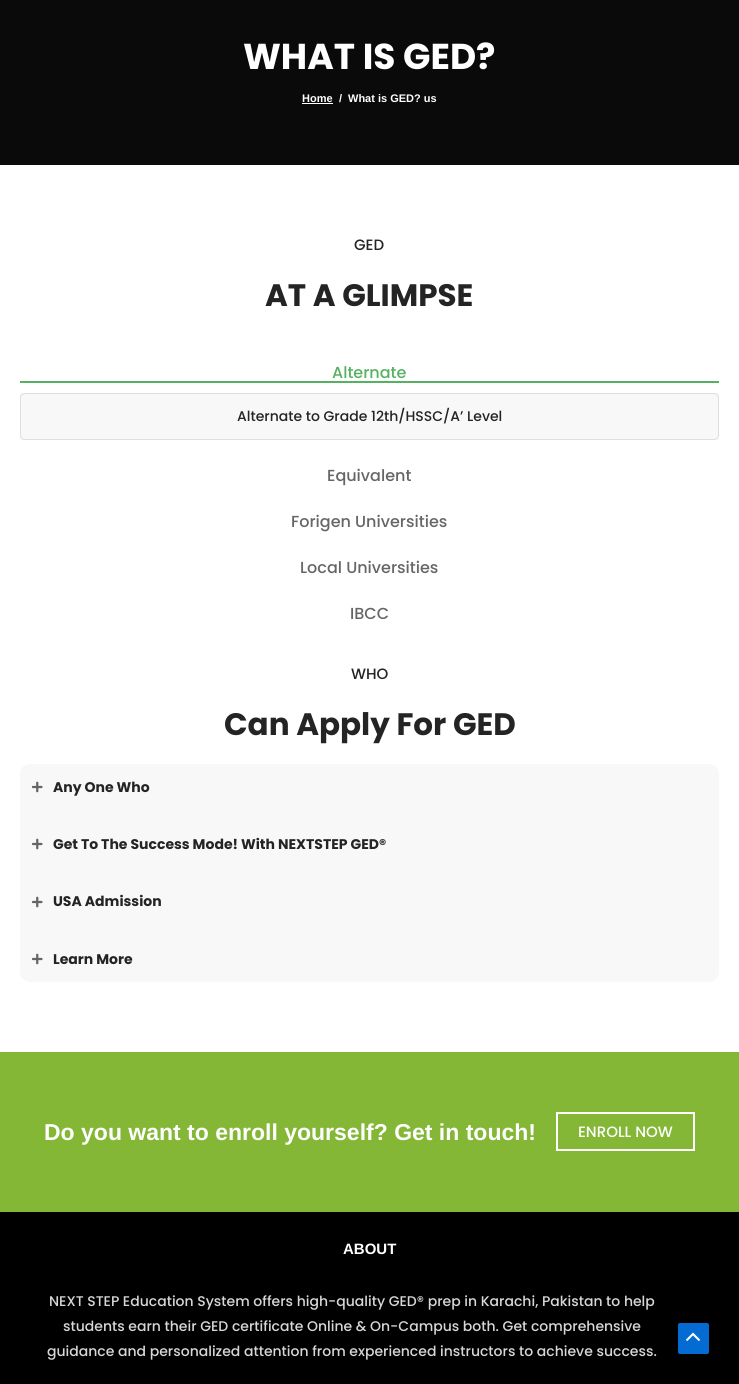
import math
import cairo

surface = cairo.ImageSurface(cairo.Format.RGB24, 739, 1384)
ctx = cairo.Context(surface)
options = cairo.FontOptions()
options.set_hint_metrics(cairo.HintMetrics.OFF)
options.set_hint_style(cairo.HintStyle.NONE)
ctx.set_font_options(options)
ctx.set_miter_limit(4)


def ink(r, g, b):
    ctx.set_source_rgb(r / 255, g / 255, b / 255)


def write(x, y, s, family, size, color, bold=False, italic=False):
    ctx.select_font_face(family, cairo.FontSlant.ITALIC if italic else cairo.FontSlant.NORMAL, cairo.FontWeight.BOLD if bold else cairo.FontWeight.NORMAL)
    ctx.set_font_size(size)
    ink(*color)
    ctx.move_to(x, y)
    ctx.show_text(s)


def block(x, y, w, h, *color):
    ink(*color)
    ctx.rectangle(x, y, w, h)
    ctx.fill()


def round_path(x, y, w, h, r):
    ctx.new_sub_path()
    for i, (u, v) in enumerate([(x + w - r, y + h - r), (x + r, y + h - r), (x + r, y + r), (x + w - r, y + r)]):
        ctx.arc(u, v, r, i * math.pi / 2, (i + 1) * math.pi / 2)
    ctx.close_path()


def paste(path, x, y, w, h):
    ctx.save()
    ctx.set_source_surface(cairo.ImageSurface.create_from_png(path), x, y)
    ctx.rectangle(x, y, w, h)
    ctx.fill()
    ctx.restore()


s1 = dict(family="Poppins", size=36, color=(255, 255, 255), bold=True)
s2 = dict(family="Liberation Sans", size=11, color=(255, 255, 255), bold=True)
s3 = dict(family="Poppins Medium", size=15, color=(36, 36, 36))
s4 = dict(family="Poppins", size=31, color=(36, 36, 36), bold=True)
s5 = dict(family="Poppins Medium", size=16, color=(86, 177, 98))
s6 = dict(family="Poppins Medium", size=16, color=(102, 102, 102))
s7 = dict(family="Poppins Medium", size=14, color=(36, 36, 36))
s8 = dict(family="Poppins", size=14, color=(36, 36, 36), bold=True)
s9 = dict(family="Liberation Sans", size=23, color=(255, 255, 255), bold=True)
s10 = dict(family="Poppins Medium", size=15, color=(255, 255, 255))
s11 = dict(family="Liberation Sans", size=15, color=(255, 255, 255), bold=True)
s12 = dict(family="Poppins Medium", size=14, color=(215, 215, 215))

ink(255, 255, 255)
ctx.paint()
block(0, 0, 739, 165, 10, 10, 10)
write(243, 69, "WHAT IS GED?", **s1)
write(302, 102, "Home", **s2)
block(302, 103, 31, 1, 255, 255, 255)
write(339, 102, "/", **s2)
write(348, 102, "What is GED? us", **s2)
write(354, 250, "GED", **s3)
write(265, 306, "AT A GLIMPSE", **s4)
block(20, 381, 699, 2, 86, 177, 98)
write(332, 378, "Alternate", **s5)
write(327, 481, "Equivalent", **s6)
write(291, 527, "Forigen Universities", **s6)
write(300, 573, "Local Universities", **s6)
write(350, 619, "IBCC", **s6)
block(20, 393, 699, 47, 248, 248, 248)
round_path(20.5, 393.5, 698, 46, 4.5)
ink(223, 223, 223)
ctx.set_line_width(1)
ctx.stroke()
write(237, 421, "Alternate to Grade 12th/HSSC/A’ Level", **s7)
write(351, 679, "WHO", **s3)
write(224, 735, "Can Apply For GED", **s4)
ink(248, 248, 248)
round_path(20, 764, 699, 218, 10)
ctx.fill()
paste("pic1.png", 32, 781, 11, 12)
write(53, 792, "Any One Who", **s8)
paste("pic1.png", 32, 838, 11, 12)
write(53, 849, "Get To The Success Mode! With NEXTSTEP GED®", **s8)
paste("pic1.png", 32, 896, 11, 12)
write(53, 906, "USA Admission", **s8)
paste("pic1.png", 32, 953, 11, 12)
write(53, 964, "Learn More", **s8)
block(0, 1052, 739, 160, 131, 183, 53)
write(44, 1140, "Do you want to enroll yourself? Get in touch!", **s9)
ctx.rectangle(557, 1113, 137, 37)
ctx.set_line_width(2)
ctx.stroke()
write(578, 1137, "ENROLL NOW", **s10)
block(0, 1212, 739, 172, 0, 0, 0)
write(343, 1254, "ABOUT", **s11)
write(49, 1306, "NEXT STEP Education System offers high-quality GED® prep in Karachi, Pakistan to help", **s12)
write(63, 1331, "students earn their GED certificate Online & On-Campus both. Get comprehensive", **s12)
write(47, 1356, "guidance and personalized attention from experienced instructors to achieve success.", **s12)
ink(4, 107, 210)
round_path(678, 1323, 31, 31, 2)
ctx.fill()
paste("pic2.png", 686, 1332, 15, 10)
surface.write_to_png("screenshot.png")
